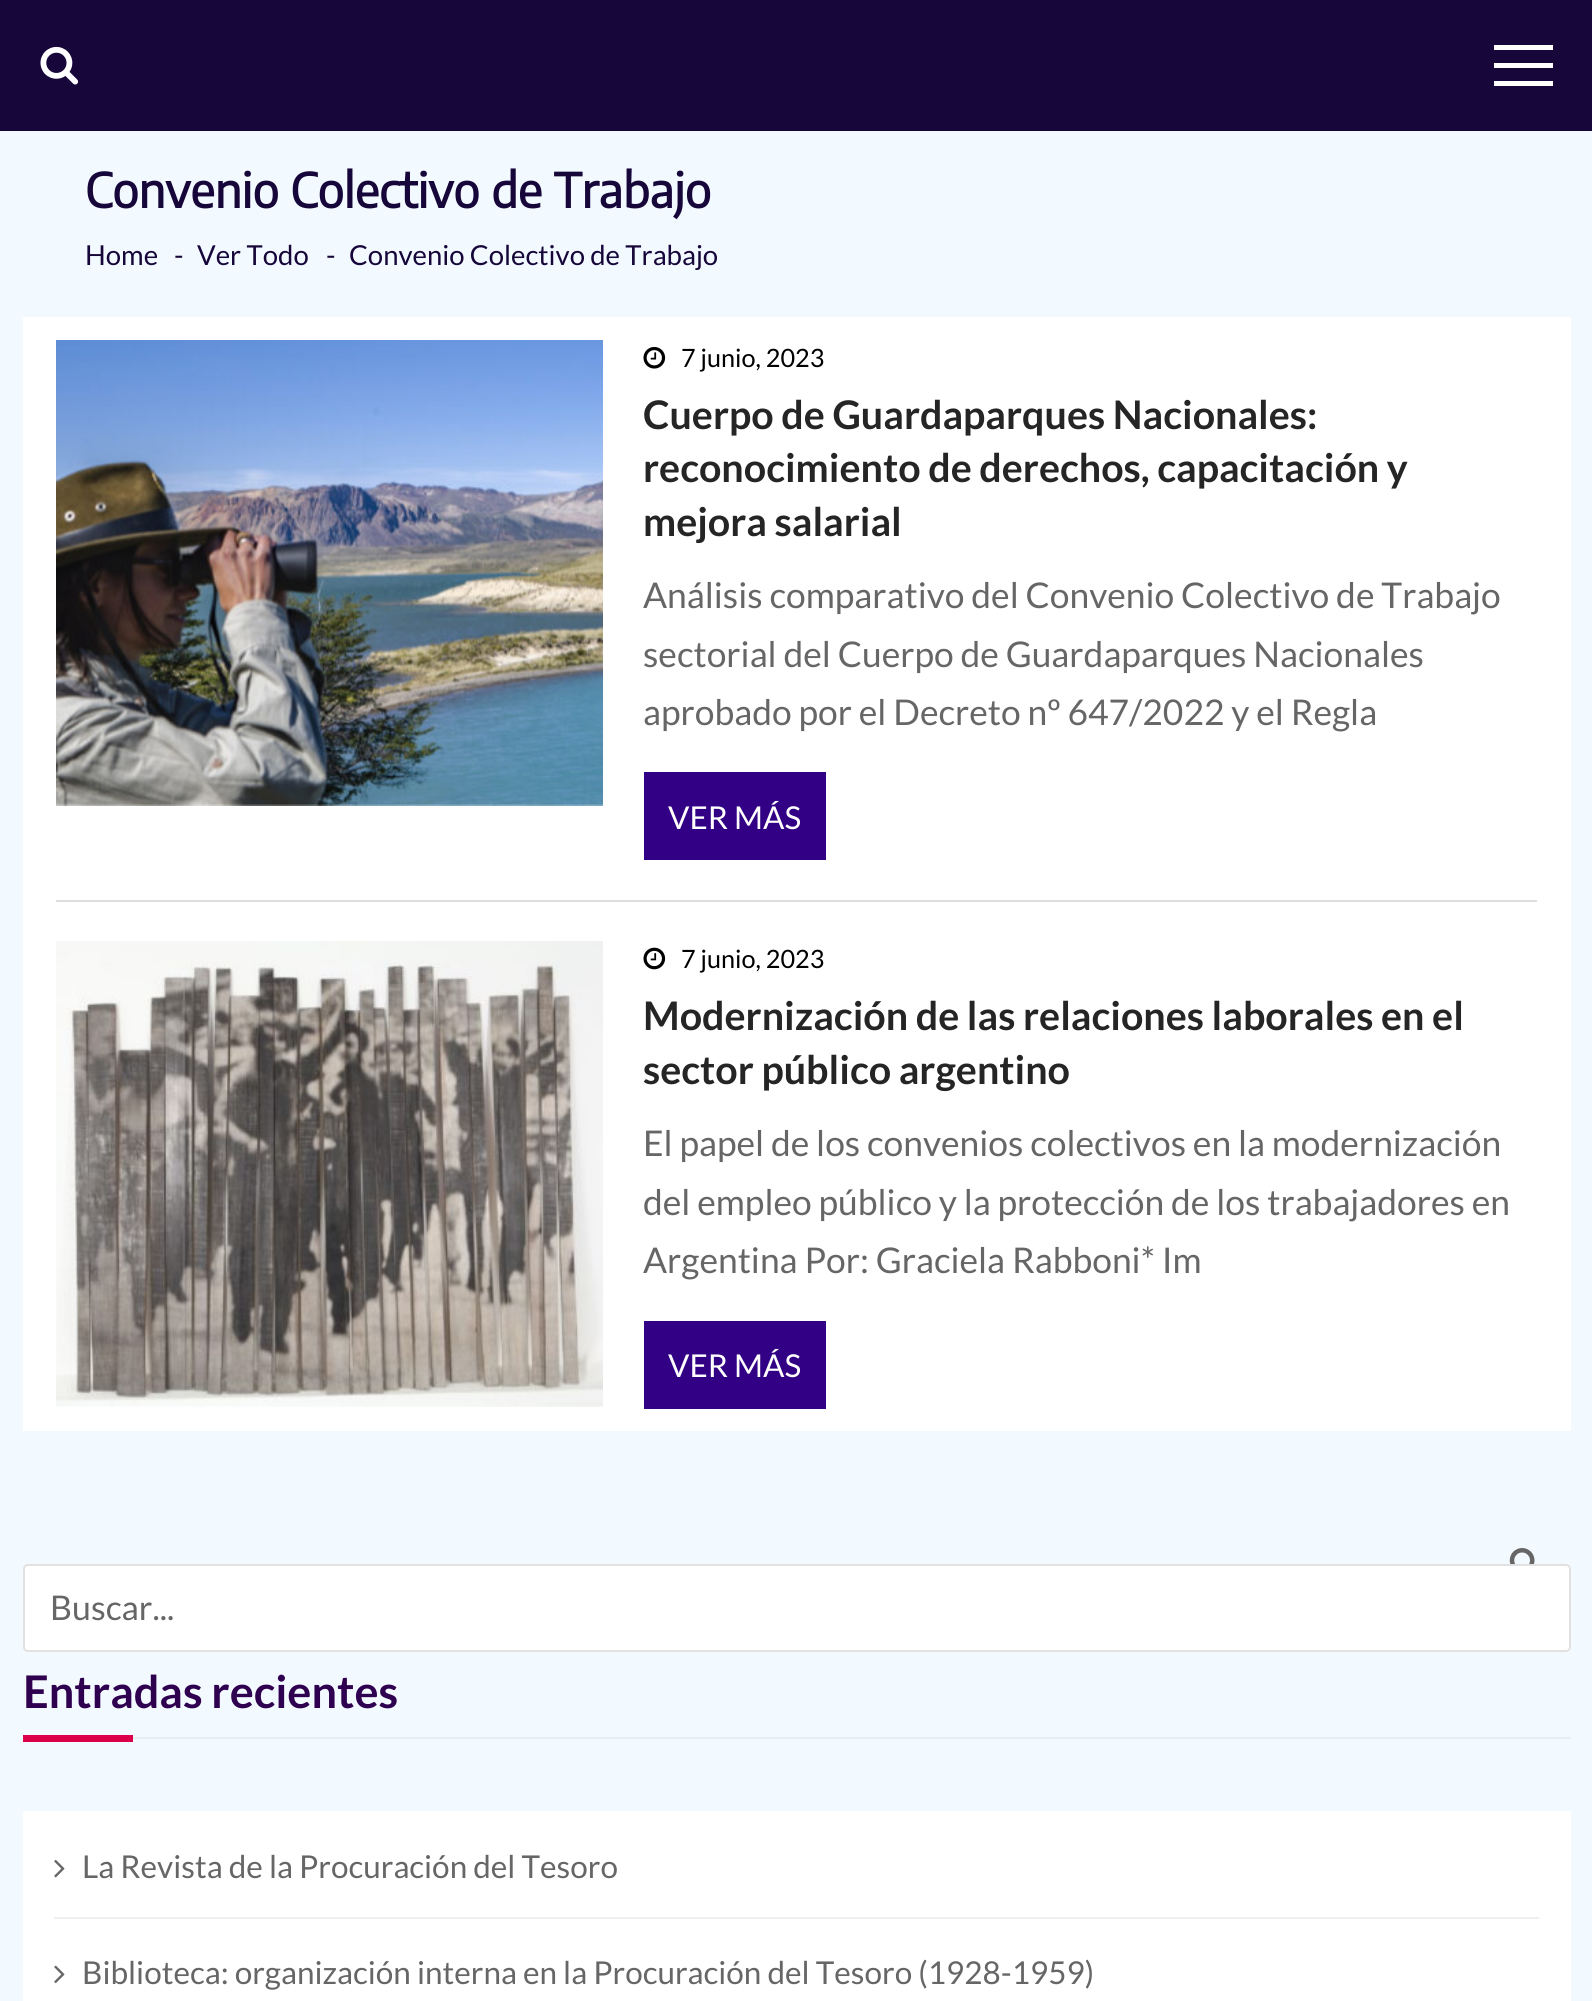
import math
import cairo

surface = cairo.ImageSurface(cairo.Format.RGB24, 1592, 2001)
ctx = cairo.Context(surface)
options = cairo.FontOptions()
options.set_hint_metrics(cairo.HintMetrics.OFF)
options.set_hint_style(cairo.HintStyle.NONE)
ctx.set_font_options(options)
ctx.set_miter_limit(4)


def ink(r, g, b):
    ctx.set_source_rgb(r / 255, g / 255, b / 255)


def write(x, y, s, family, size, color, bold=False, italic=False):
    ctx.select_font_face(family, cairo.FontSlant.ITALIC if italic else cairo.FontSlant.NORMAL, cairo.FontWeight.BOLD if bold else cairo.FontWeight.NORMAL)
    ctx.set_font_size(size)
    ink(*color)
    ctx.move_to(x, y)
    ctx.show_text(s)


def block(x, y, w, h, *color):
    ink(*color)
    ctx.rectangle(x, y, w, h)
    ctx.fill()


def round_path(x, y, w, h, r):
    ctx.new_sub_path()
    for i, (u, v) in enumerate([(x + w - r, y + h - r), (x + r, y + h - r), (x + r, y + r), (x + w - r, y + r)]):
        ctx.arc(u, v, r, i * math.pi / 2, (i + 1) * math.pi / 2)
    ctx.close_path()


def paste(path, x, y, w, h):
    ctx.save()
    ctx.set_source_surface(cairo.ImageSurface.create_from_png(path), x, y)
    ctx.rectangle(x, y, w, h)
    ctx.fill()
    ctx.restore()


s1 = dict(family="Encode Sans Condensed", size=47.25, color=(22, 6, 58), bold=True)
s2 = dict(family="Lato", size=27.5, color=(22, 6, 58))
s3 = dict(family="Lato", size=25.25, color=(0, 0, 0))
s4 = dict(family="Lato", size=39.4, color=(37, 37, 37), bold=True)
s5 = dict(family="Lato", size=35.4, color=(102, 102, 102))
s6 = dict(family="Lato", size=31.5, color=(255, 255, 255))
s7 = dict(family="Lato", size=34, color=(102, 102, 102))
s8 = dict(family="Lato", size=45, color=(47, 0, 79), bold=True)
s9 = dict(family="Lato", size=31.5, color=(102, 102, 102))

ink(242, 250, 255)
ctx.paint()
block(0, 0, 1592, 131, 22, 6, 58)
paste("pic1.png", 40, 46, 39, 39)
block(1494, 63, 59, 5, 255, 255, 255)
block(1494, 45, 59, 5, 255, 255, 255)
block(1494, 81, 59, 5, 255, 255, 255)
write(85, 208, "Convenio Colectivo de Trabajo", **s1)
write(85, 265, "Home", **s2)
write(174, 265, "-", **s2)
write(197, 265, "Ver Todo", **s2)
write(326, 265, "-", **s2)
write(349, 265, "Convenio Colectivo de Trabajo", **s2)
block(23, 317, 1548, 1114, 255, 255, 255)
block(56, 900, 1481, 2, 221, 221, 221)
paste("pic2.png", 56, 340, 547, 466)
paste("pic3.png", 643, 346, 23, 23)
write(681, 367, "7 junio, 2023", **s3)
write(643, 429, "Cuerpo de Guardaparques Nacionales:", **s4)
write(643, 482, "reconocimiento de derechos, capacitación y", **s4)
write(643, 536, "mejora salarial", **s4)
write(643, 608, "Análisis comparativo del Convenio Colectivo de Trabajo", **s5)
write(643, 667, "sectorial del Cuerpo de Guardaparques Nacionales", **s5)
write(643, 725, "aprobado por el Decreto nº 647/2022 y el Regla", **s5)
block(644, 772, 182, 88, 50, 0, 132)
write(668, 829, "VER MÁS", **s6)
paste("pic4.png", 56, 941, 547, 466)
paste("pic5.png", 643, 947, 23, 23)
write(681, 968, "7 junio, 2023", **s3)
write(643, 1030, "Modernización de las relaciones laborales en el", **s4)
write(643, 1084, "sector público argentino", **s4)
write(643, 1156, "El papel de los convenios colectivos en la modernización", **s5)
write(643, 1215, "del empleo público y la protección de los trabajadores en", **s5)
write(643, 1273, "Argentina Por: Graciela Rabboni* Im", **s5)
block(644, 1321, 182, 88, 50, 0, 132)
write(668, 1377, "VER MÁS", **s6)
paste("pic6.png", 1509, 1548, 26, 16)
round_path(24, 1565, 1546, 86, 4)
ctx.fill_preserve()
ink(225, 225, 225)
ctx.stroke()
write(50, 1620, "Buscar...", **s7)
write(23, 1708, "Entradas recientes", **s8)
block(23, 1735, 110, 7, 219, 0, 73)
block(133, 1737, 1438, 2, 230, 238, 242)
block(23, 1811, 1548, 190, 255, 255, 255)
block(54, 1917, 1485, 2, 239, 239, 239)
paste("pic7.png", 54, 1859, 11, 19)
write(82, 1878, "La Revista de la Procuración del Tesoro", **s9)
paste("pic8.png", 54, 1965, 11, 19)
write(82, 1984, "Biblioteca: organización interna en la Procuración del Tesoro (1928-1959)", **s9)
surface.write_to_png("screenshot.png")
